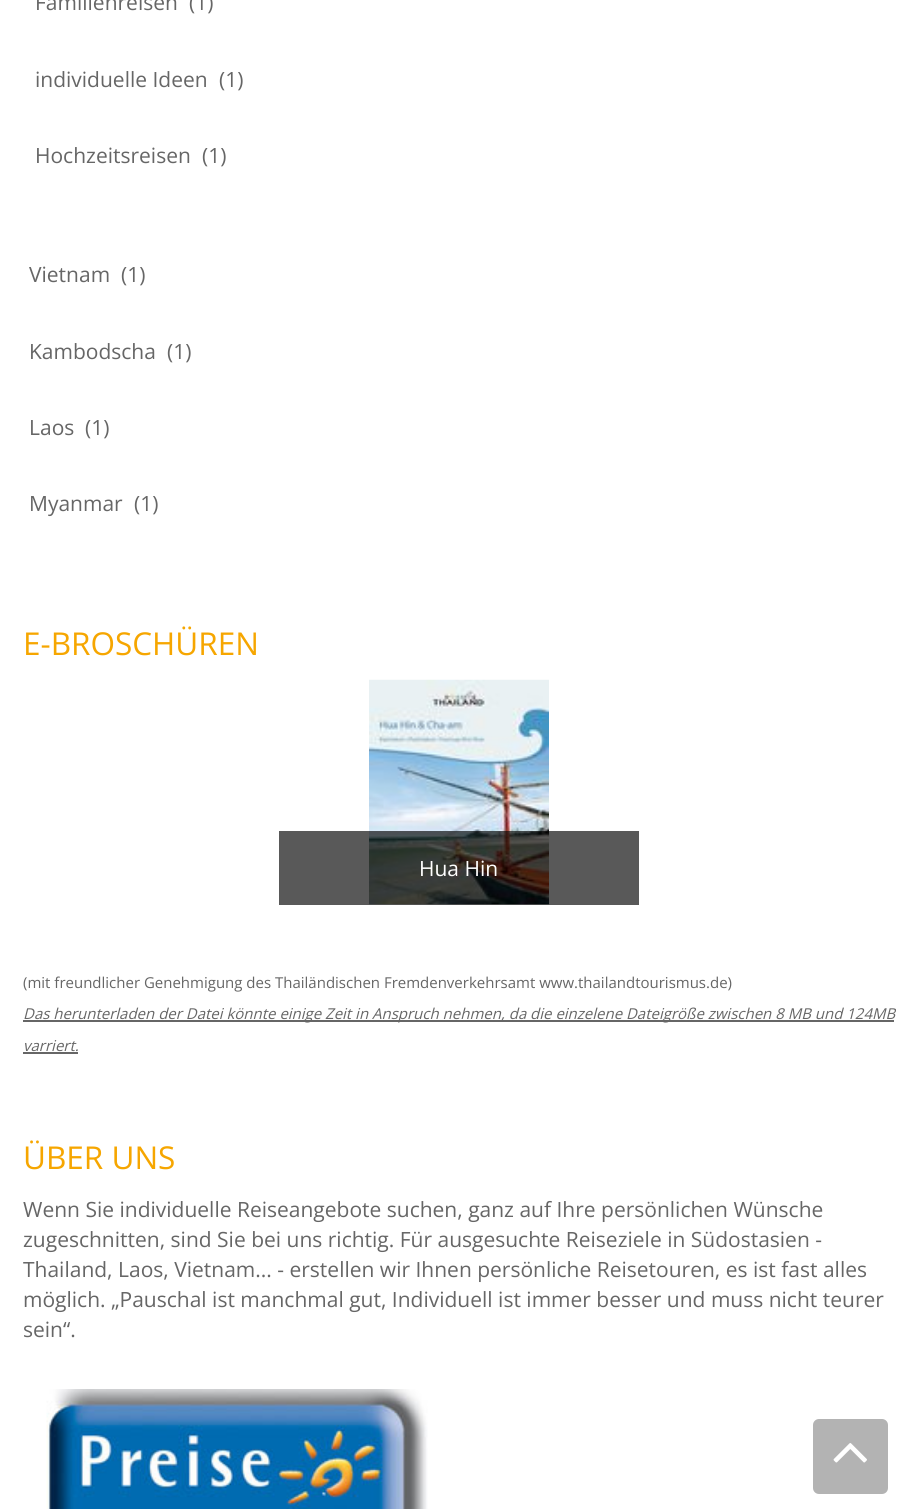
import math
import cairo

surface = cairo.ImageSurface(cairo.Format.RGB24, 917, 1509)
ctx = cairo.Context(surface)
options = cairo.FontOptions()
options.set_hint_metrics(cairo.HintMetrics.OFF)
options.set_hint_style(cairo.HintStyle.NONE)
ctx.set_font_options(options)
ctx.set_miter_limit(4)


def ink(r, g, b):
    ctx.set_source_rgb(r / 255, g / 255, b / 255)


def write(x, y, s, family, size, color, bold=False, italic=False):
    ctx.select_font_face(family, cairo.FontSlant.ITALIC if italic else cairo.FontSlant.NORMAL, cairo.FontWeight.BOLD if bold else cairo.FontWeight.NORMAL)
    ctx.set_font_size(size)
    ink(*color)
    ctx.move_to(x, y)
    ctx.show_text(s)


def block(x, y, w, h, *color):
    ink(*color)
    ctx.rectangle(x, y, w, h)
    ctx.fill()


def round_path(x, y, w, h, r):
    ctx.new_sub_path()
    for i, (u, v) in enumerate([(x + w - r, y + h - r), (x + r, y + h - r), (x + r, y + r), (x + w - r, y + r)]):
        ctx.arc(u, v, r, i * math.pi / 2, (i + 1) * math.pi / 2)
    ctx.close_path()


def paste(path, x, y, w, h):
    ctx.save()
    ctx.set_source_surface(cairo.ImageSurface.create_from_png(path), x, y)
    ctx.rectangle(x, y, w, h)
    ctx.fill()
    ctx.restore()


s1 = dict(family="Open Sans", size=21, color=(102, 102, 102))
s2 = dict(family="Open Sans", size=31.5, color=(246, 166, 0))
s3 = dict(family="Open Sans", size=21, color=(255, 255, 255))
s4 = dict(family="Open Sans", size=15, color=(102, 102, 102))
s5 = dict(family="Open Sans", size=15, color=(102, 102, 102), italic=True)

ink(255, 255, 255)
ctx.paint()
write(35, 10, "Familienreisen", **s1)
write(189, 10, "(1)", **s1)
write(35, 87, "individuelle Ideen", **s1)
write(219, 87, "(1)", **s1)
write(35, 163, "Hochzeitsreisen", **s1)
write(202, 163, "(1)", **s1)
write(29, 282, "Vietnam", **s1)
write(121, 282, "(1)", **s1)
write(29, 359, "Kambodscha", **s1)
write(167, 359, "(1)", **s1)
write(29, 435, "Laos", **s1)
write(85, 435, "(1)", **s1)
write(29, 511, "Myanmar", **s1)
write(134, 511, "(1)", **s1)
write(23, 655, "E-BROSCHÜREN", **s2)
paste("pic1.png", 369, 679, 180, 226)
ctx.set_source_rgba(0, 0, 0, 0.65)
ctx.rectangle(279, 831, 360, 74)
ctx.fill()
write(419, 876, "Hua Hin", **s3)
write(23, 988, "(mit freundlicher Genehmigung des Thailändischen Fremdenverkehrsamt www.thailandtourismus.de)", **s4)
block(23, 1020, 871, 2, 102, 102, 102)
write(23, 1019, "Das herunterladen der Datei könnte einige Zeit in Anspruch nehmen, da die einzelene Dateigröße zwischen 8 MB und 124MB", **s5)
write(23, 1051, "varriert.", **s5)
block(23, 1052, 55, 2, 102, 102, 102)
write(23, 1169, "ÜBER UNS", **s2)
write(23, 1217, "Wenn Sie individuelle Reiseangebote suchen, ganz auf Ihre persönlichen Wünsche", **s1)
write(23, 1247, "zugeschnitten, sind Sie bei uns richtig. Für ausgesuchte Reiseziele in Südostasien -", **s1)
write(23, 1277, "Thailand, Laos, Vietnam... - erstellen wir Ihnen persönliche Reisetouren, es ist fast alles", **s1)
write(23, 1307, "möglich. „Pauschal ist manchmal gut, Individuell ist immer besser und muss nicht teurer", **s1)
write(23, 1337, "sein“.", **s1)
paste("pic2.png", 46, 1389, 382, 120)
ink(179, 179, 179)
round_path(813, 1419, 75, 75, 6)
ctx.fill()
paste("pic3.png", 833, 1443, 34, 20)
surface.write_to_png("screenshot.png")
